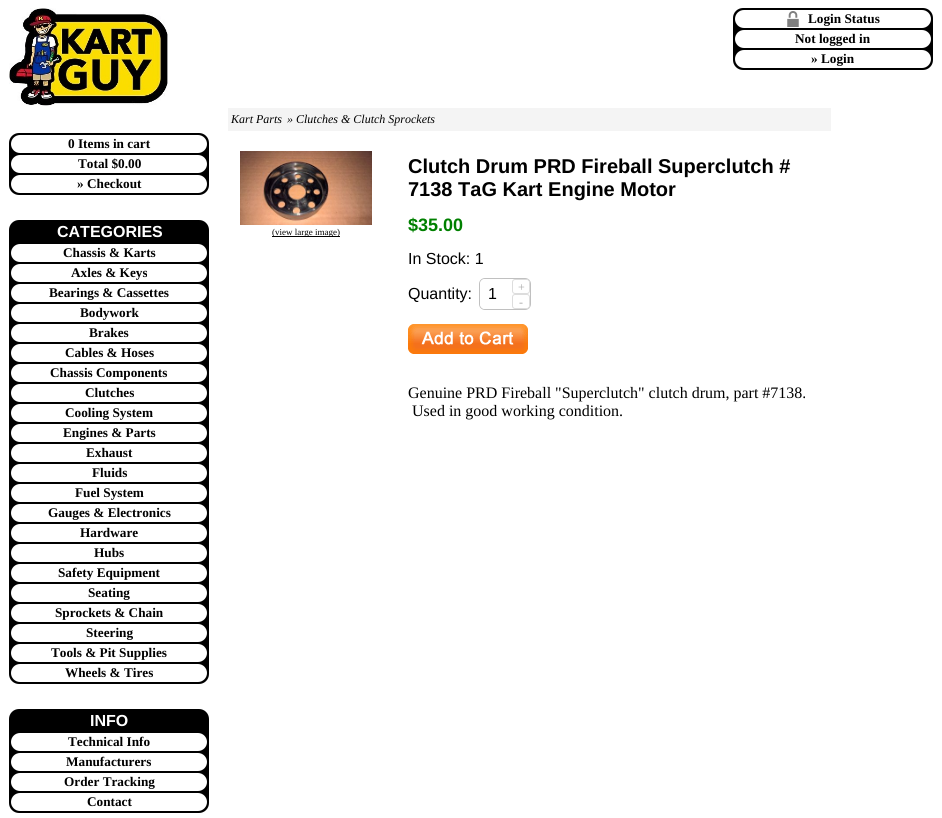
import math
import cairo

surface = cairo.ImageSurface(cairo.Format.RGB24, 942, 818)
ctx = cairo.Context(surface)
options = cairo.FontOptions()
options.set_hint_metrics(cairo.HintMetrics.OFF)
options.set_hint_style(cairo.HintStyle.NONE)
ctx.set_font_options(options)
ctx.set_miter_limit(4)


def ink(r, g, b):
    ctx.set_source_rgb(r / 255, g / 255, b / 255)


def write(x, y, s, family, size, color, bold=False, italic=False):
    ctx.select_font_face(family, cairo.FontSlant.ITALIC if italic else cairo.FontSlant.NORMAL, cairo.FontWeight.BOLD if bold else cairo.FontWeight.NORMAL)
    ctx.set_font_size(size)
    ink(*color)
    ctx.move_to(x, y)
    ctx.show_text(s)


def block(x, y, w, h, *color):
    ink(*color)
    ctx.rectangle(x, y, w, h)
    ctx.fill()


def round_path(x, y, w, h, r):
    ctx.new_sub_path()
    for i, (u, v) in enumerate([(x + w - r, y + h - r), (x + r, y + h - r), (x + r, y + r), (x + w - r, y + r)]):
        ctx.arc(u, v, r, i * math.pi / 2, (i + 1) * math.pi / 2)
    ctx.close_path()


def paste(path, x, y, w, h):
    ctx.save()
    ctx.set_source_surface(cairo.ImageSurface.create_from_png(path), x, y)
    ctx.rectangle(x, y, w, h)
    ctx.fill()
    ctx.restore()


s1 = dict(family="Liberation Serif", size=13.25, color=(0, 0, 0), bold=True)
s2 = dict(family="Liberation Sans", size=16, color=(255, 255, 255), bold=True)
s3 = dict(family="Liberation Serif", size=12, color=(0, 0, 0), italic=True)
s4 = dict(family="Liberation Sans", size=20, color=(0, 0, 0), bold=True)
s5 = dict(family="Liberation Serif", size=9, color=(0, 0, 0))
s6 = dict(family="Liberation Sans", size=18, color=(0, 128, 0), bold=True)
s7 = dict(family="Liberation Sans", size=16, color=(0, 0, 0))
s8 = dict(family="Liberation Serif", size=12, color=(170, 170, 170))
s9 = dict(family="Liberation Serif", size=16, color=(0, 0, 0))

ink(255, 255, 255)
ctx.paint()
paste("pic1.png", 9, 8, 159, 98)
ink(0, 0, 0)
round_path(733, 8, 200, 62, 10)
ctx.fill()
ink(255, 255, 255)
round_path(735, 10, 196, 18, 9)
ctx.fill()
paste("pic2.png", 787, 11, 12, 16)
write(808, 23, "Login Status", **s1)
ink(255, 255, 255)
round_path(735, 30, 196, 18, 9)
ctx.fill()
write(795, 43, "Not logged in", **s1)
ink(255, 255, 255)
round_path(735, 50, 196, 18, 9)
ctx.fill()
write(811, 63, "» Login", **s1)
round_path(9, 133, 200, 62, 10)
ctx.fill()
ink(255, 255, 255)
round_path(11, 135, 196, 18, 9)
ctx.fill()
write(68, 148, "0 Items in cart", **s1)
ink(255, 255, 255)
round_path(11, 155, 196, 18, 9)
ctx.fill()
write(78, 168, "Total $0.00", **s1)
ink(255, 255, 255)
round_path(11, 175, 196, 18, 9)
ctx.fill()
write(77, 188, "» Checkout", **s1)
round_path(9, 220, 200, 464, 10)
ctx.fill()
write(57, 237, "CATEGORIES", **s2)
round_path(11, 244, 196, 18, 9)
ctx.fill()
write(63, 257, "Chassis & Karts", **s1)
ink(255, 255, 255)
round_path(11, 264, 196, 18, 9)
ctx.fill()
write(71, 277, "Axles & Keys", **s1)
ink(255, 255, 255)
round_path(11, 284, 196, 18, 9)
ctx.fill()
write(49, 297, "Bearings & Cassettes", **s1)
ink(255, 255, 255)
round_path(11, 304, 196, 18, 9)
ctx.fill()
write(80, 317, "Bodywork", **s1)
ink(255, 255, 255)
round_path(11, 324, 196, 18, 9)
ctx.fill()
write(89, 337, "Brakes", **s1)
ink(255, 255, 255)
round_path(11, 344, 196, 18, 9)
ctx.fill()
write(65, 357, "Cables & Hoses", **s1)
ink(255, 255, 255)
round_path(11, 364, 196, 18, 9)
ctx.fill()
write(50, 377, "Chassis Components", **s1)
ink(255, 255, 255)
round_path(11, 384, 196, 18, 9)
ctx.fill()
write(85, 397, "Clutches", **s1)
ink(255, 255, 255)
round_path(11, 404, 196, 18, 9)
ctx.fill()
write(65, 417, "Cooling System", **s1)
ink(255, 255, 255)
round_path(11, 424, 196, 18, 9)
ctx.fill()
write(63, 437, "Engines & Parts", **s1)
ink(255, 255, 255)
round_path(11, 444, 196, 18, 9)
ctx.fill()
write(86, 457, "Exhaust", **s1)
ink(255, 255, 255)
round_path(11, 464, 196, 18, 9)
ctx.fill()
write(92, 477, "Fluids", **s1)
ink(255, 255, 255)
round_path(11, 484, 196, 18, 9)
ctx.fill()
write(75, 497, "Fuel System", **s1)
ink(255, 255, 255)
round_path(11, 504, 196, 18, 9)
ctx.fill()
write(48, 517, "Gauges & Electronics", **s1)
ink(255, 255, 255)
round_path(11, 524, 196, 18, 9)
ctx.fill()
write(80, 537, "Hardware", **s1)
ink(255, 255, 255)
round_path(11, 544, 196, 18, 9)
ctx.fill()
write(94, 557, "Hubs", **s1)
ink(255, 255, 255)
round_path(11, 564, 196, 18, 9)
ctx.fill()
write(58, 577, "Safety Equipment", **s1)
ink(255, 255, 255)
round_path(11, 584, 196, 18, 9)
ctx.fill()
write(88, 597, "Seating", **s1)
ink(255, 255, 255)
round_path(11, 604, 196, 18, 9)
ctx.fill()
write(55, 617, "Sprockets & Chain", **s1)
ink(255, 255, 255)
round_path(11, 624, 196, 18, 9)
ctx.fill()
write(86, 637, "Steering", **s1)
ink(255, 255, 255)
round_path(11, 644, 196, 18, 9)
ctx.fill()
write(51, 657, "Tools & Pit Supplies", **s1)
ink(255, 255, 255)
round_path(11, 664, 196, 18, 9)
ctx.fill()
write(65, 677, "Wheels & Tires", **s1)
round_path(9, 709, 200, 104, 10)
ctx.fill()
write(90, 726, "INFO", **s2)
round_path(11, 733, 196, 18, 9)
ctx.fill()
write(68, 746, "Technical Info", **s1)
ink(255, 255, 255)
round_path(11, 753, 196, 18, 9)
ctx.fill()
write(66, 766, "Manufacturers", **s1)
ink(255, 255, 255)
round_path(11, 773, 196, 18, 9)
ctx.fill()
write(64, 786, "Order Tracking", **s1)
ink(255, 255, 255)
round_path(11, 793, 196, 18, 9)
ctx.fill()
write(87, 806, "Contact", **s1)
block(228, 108, 603, 23, 244, 244, 244)
write(231, 123, "Kart Parts", **s3)
write(287, 123, "» Clutches & Clutch Sprockets", **s3)
write(408, 173, "Clutch Drum PRD Fireball Superclutch #", **s4)
write(408, 196, "7138 TaG Kart Engine Motor", **s4)
paste("pic3.png", 240, 151, 132, 74)
block(272, 236, 68, 1, 0, 0, 0)
write(272, 235, "(view large image)", **s5)
write(408, 231, "$35.00", **s6)
write(408, 264, "In Stock: 1", **s7)
write(408, 299, "Quantity:", **s7)
round_path(479.5, 278.5, 51, 31, 5.5)
ink(192, 192, 192)
ctx.set_line_width(1)
ctx.stroke()
round_path(512.5, 279.5, 17, 14, 2.5)
ink(221, 221, 221)
ctx.stroke()
write(518, 291, "+", **s8)
ink(255, 255, 255)
round_path(480, 279, 25, 30, 5)
ctx.fill()
write(488, 299, "1", **s7)
round_path(512.5, 294.5, 17, 14, 2.5)
ink(221, 221, 221)
ctx.stroke()
write(519, 306, "-", **s8)
paste("pic4.png", 408, 324, 120, 30)
write(408, 398, "Genuine PRD Fireball \"Superclutch\" clutch drum, part #7138.", **s9)
write(412, 416, "Used in good working condition.", **s9)
surface.write_to_png("screenshot.png")
